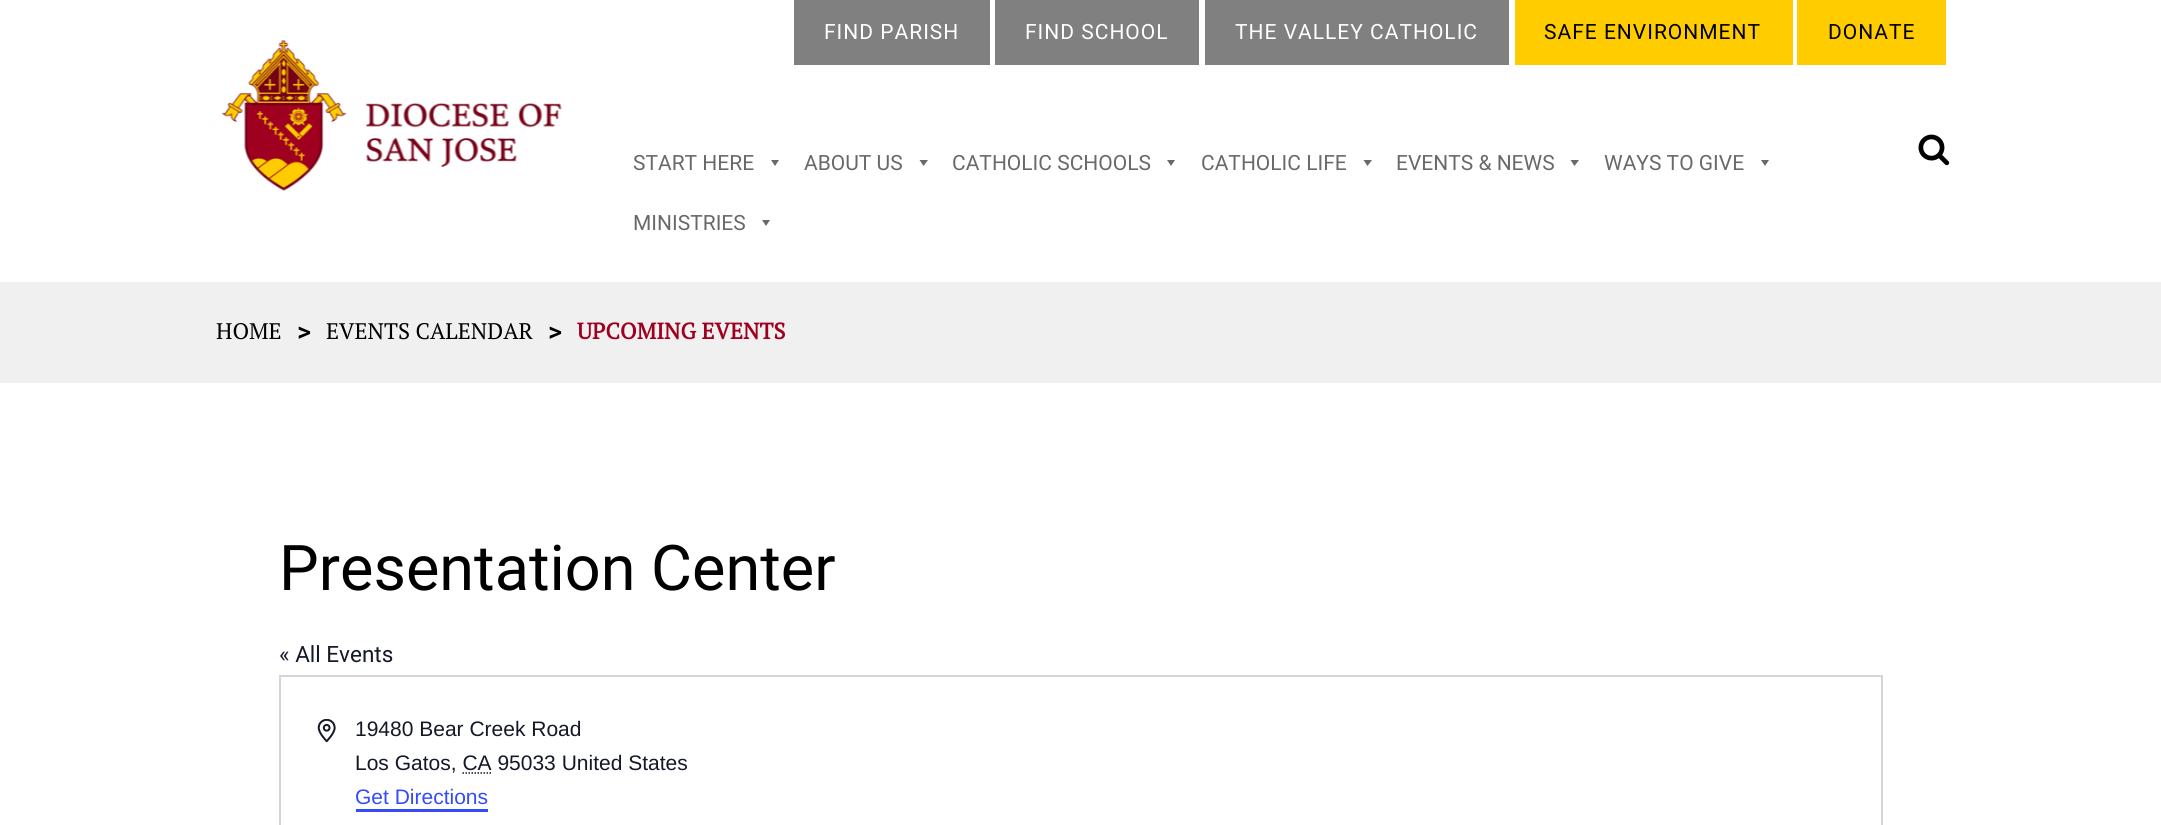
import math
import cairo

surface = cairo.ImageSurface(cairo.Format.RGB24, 2161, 825)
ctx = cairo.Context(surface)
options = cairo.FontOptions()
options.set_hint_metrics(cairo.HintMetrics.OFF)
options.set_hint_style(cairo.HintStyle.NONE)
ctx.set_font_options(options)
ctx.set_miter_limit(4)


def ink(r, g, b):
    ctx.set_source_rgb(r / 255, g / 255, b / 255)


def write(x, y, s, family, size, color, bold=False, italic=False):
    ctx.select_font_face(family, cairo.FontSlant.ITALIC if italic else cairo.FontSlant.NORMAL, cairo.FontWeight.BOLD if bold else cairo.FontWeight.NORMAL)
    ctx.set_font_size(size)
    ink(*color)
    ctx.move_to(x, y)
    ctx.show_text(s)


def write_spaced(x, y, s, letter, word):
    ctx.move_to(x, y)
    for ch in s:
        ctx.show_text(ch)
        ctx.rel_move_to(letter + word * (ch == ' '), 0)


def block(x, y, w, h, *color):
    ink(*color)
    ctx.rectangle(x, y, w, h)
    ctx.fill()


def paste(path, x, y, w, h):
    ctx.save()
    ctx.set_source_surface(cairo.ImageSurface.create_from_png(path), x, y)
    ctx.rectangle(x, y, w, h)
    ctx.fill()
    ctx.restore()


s1 = dict(family="Roboto", size=21, color=(105, 105, 105))
s2 = dict(family="PT Serif", size=22.5, color=(0, 0, 0))
s3 = dict(family="Roboto Medium", size=27, color=(0, 0, 0))
s4 = dict(family="PT Serif", size=22.5, color=(159, 0, 31), bold=True)
s5 = dict(family="Roboto", size=63, color=(0, 0, 0))
s6 = dict(family="Roboto", size=22.5, color=(20, 24, 39))
s7 = dict(family="Liberation Sans", size=21, color=(20, 24, 39))
s8 = dict(family="Liberation Sans", size=21, color=(51, 74, 255))

ink(255, 255, 255)
ctx.paint()
block(794, 0, 196, 65, 128, 128, 128)
ctx.select_font_face("Roboto")
ctx.set_font_size(21)
ink(255, 255, 255)
write_spaced(824, 39, "FIND PARISH", 1, 0)
block(995, 0, 204, 65, 128, 128, 128)
ink(255, 255, 255)
write_spaced(1025, 39, "FIND SCHOOL", 1, 0)
block(1205, 0, 304, 65, 128, 128, 128)
ink(255, 255, 255)
write_spaced(1235, 39, "THE VALLEY CATHOLIC", 1, 0)
block(1515, 0, 278, 65, 255, 204, 0)
ink(0, 0, 0)
write_spaced(1544, 39, "SAFE ENVIRONMENT", 1, 0)
block(1797, 0, 149, 65, 255, 204, 0)
ink(0, 0, 0)
write_spaced(1828, 39, "DONATE", 1, 0)
paste("pic1.png", 221, 40, 341, 151)
paste("pic2.png", 1918, 134, 32, 32)
write(633, 170, "START HERE", **s1)
ctx.new_path()
ctx.move_to(779, 160)
ctx.line_to(775, 166)
ctx.line_to(771, 160)
ctx.close_path()
ctx.fill()
write(804, 170, "ABOUT US", **s1)
ctx.new_path()
ctx.move_to(928, 160)
ctx.line_to(923.5, 166)
ctx.line_to(919.5, 160)
ctx.close_path()
ctx.fill()
write(952, 170, "CATHOLIC SCHOOLS", **s1)
ctx.new_path()
ctx.move_to(1175, 160)
ctx.line_to(1171, 166)
ctx.line_to(1167, 160)
ctx.close_path()
ctx.fill()
write(1201, 170, "CATHOLIC LIFE", **s1)
ctx.new_path()
ctx.move_to(1372, 160)
ctx.line_to(1367.5, 166)
ctx.line_to(1363.5, 160)
ctx.close_path()
ctx.fill()
write(1396, 170, "EVENTS & NEWS", **s1)
ctx.new_path()
ctx.move_to(1579, 160)
ctx.line_to(1574.5, 166)
ctx.line_to(1570.5, 160)
ctx.close_path()
ctx.fill()
write(1604, 170, "WAYS TO GIVE", **s1)
ctx.new_path()
ctx.move_to(1769, 160)
ctx.line_to(1765, 166)
ctx.line_to(1761, 160)
ctx.close_path()
ctx.fill()
write(633, 230, "MINISTRIES", **s1)
ctx.new_path()
ctx.move_to(770, 220)
ctx.line_to(766, 226)
ctx.line_to(762, 220)
ctx.close_path()
ctx.fill()
block(0, 282, 2161, 101, 240, 240, 240)
write(216, 339, "HOME", **s2)
write(297, 341, ">", **s3)
write(326, 339, "EVENTS CALENDAR", **s2)
write(548, 341, ">", **s3)
write(577, 339, "UPCOMING EVENTS", **s4)
write(279, 590, "Presentation Center", **s5)
write(279, 662, "« All Events", **s6)
ctx.rectangle(280, 676, 1602, 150)
ink(213, 213, 213)
ctx.stroke()
paste("pic3.png", 317, 719, 19, 24)
write(355, 736, "19480 Bear Creek Road", **s7)
write(355, 770, "Los Gatos, CA 95033 United States", **s7)
ctx.new_path()
ctx.move_to(462.5, 773)
ctx.line_to(491.5, 773)
ctx.set_line_width(1.5)
ctx.set_dash([1.5, 1.5])
ctx.stroke()
write(355, 804, "Get Directions", **s8)
block(356, 809, 132, 3, 51, 74, 255)
surface.write_to_png("screenshot.png")
